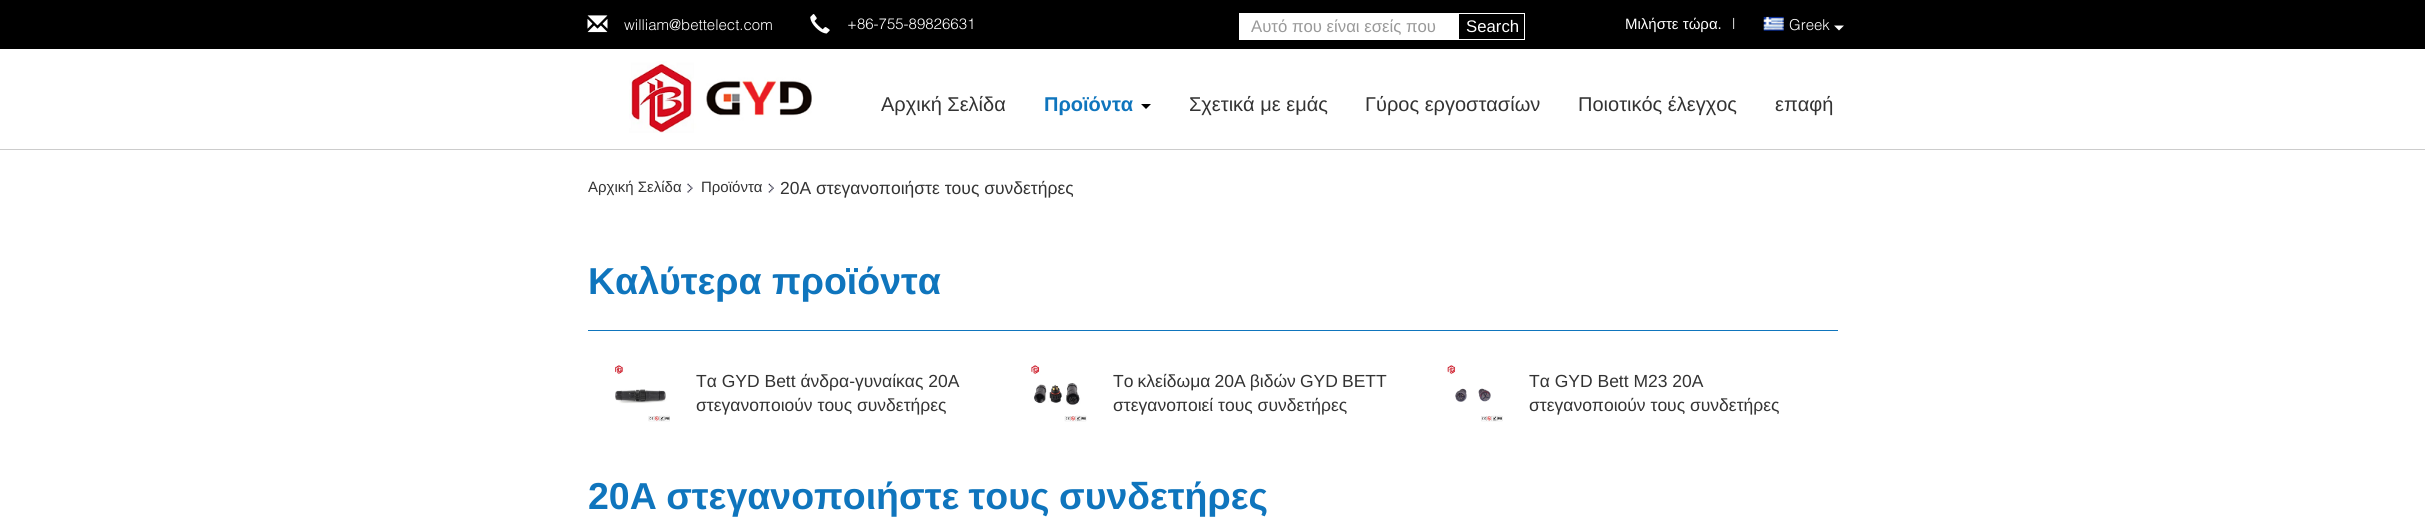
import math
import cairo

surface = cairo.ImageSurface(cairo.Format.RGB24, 2425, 528)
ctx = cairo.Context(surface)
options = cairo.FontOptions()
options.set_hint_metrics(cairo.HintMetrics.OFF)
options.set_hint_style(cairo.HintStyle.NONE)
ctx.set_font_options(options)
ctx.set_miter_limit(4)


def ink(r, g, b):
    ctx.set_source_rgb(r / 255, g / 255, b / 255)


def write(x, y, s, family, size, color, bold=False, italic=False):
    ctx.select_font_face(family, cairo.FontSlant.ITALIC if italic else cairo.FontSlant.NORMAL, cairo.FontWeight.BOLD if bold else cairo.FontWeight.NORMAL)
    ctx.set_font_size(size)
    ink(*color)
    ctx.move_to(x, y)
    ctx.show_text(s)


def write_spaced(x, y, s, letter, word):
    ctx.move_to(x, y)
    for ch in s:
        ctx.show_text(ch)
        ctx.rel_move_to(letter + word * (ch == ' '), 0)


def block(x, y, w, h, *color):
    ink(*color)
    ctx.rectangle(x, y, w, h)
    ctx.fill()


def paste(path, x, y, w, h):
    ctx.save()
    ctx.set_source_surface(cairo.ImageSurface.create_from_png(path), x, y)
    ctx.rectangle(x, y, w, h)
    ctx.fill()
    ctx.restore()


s1 = dict(family="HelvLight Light", size=15, color=(255, 255, 255))
s2 = dict(family="Liberation Sans", size=16.75, color=(153, 153, 153))
s3 = dict(family="Liberation Sans", size=16.75, color=(255, 255, 255))
s4 = dict(family="Liberation Sans", size=15, color=(255, 255, 255))
s5 = dict(family="Liberation Sans", size=20, color=(51, 51, 51))
s6 = dict(family="Liberation Sans", size=20, color=(15, 117, 189), bold=True)
s7 = dict(family="Liberation Sans", size=15, color=(51, 51, 51))
s8 = dict(family="Liberation Sans", size=17.5, color=(51, 51, 51))
s9 = dict(family="Liberation Sans", size=37.5, color=(15, 117, 189), bold=True)

ink(255, 255, 255)
ctx.paint()
block(0, 0, 2425, 49, 0, 0, 0)
paste("pic1.png", 587, 15, 21, 18)
write(624, 30, "william@bettelect.com", **s1)
paste("pic2.png", 810, 14, 20, 20)
write(847, 29, "+86-755-89826631", **s1)
block(1239, 13, 219, 27, 255, 255, 255)
write(1251, 32, "Αυτό που είναι εσείς που", **s2)
ctx.rectangle(1458.5, 13.5, 66, 26)
ink(255, 255, 255)
ctx.set_line_width(1)
ctx.stroke()
write(1466, 32, "Search", **s3)
write(1625, 29, "Μιλήστε τώρα.", **s4)
write(1732, 29, "|", **s1)
paste("pic3.png", 1763, 16, 21, 15)
write(1789, 30, "Greek", **s1)
ctx.new_path()
ctx.move_to(1834, 25.5)
ctx.line_to(1844, 25.5)
ctx.line_to(1839, 30.5)
ctx.close_path()
ctx.fill()
block(0, 149, 2425, 1, 204, 204, 204)
paste("pic4.png", 629, 61, 183, 72)
write(881, 111, "Αρχική Σελίδα", **s5)
write(1044, 111, "Προϊόντα", **s6)
ink(0, 0, 0)
ctx.new_path()
ctx.move_to(1141, 104)
ctx.line_to(1151, 104)
ctx.line_to(1146, 109)
ctx.close_path()
ctx.fill()
write(1189, 111, "Σχετικά με εμάς", **s5)
write(1365, 111, "Γύρος εργοστασίων", **s5)
write(1578, 111, "Ποιοτικός έλεγχος", **s5)
write(1775, 111, "επαφή", **s5)
write(588, 192, "Αρχική Σελίδα", **s7)
paste("pic5.png", 687, 183, 6, 10)
write(701, 192, "Προϊόντα", **s7)
paste("pic6.png", 768, 183, 6, 10)
write(780, 194, "20A στεγανοποιήστε τους συνδετήρες", **s8)
block(588, 330, 1250, 1, 15, 117, 189)
write(588, 294, "Καλύτερα προϊόντα", **s9)
paste("pic7.png", 615, 365, 55, 57)
write(696, 387, "Τα GYD Bett άνδρα-γυναίκας 20A", **s8)
write(696, 411, "στεγανοποιούν τους συνδετήρες", **s8)
paste("pic8.png", 1031, 365, 56, 57)
write_spaced(1113, 387, "Το κλείδωμα 20A βιδών GYD BETT", 0, -0.75)
write(1113, 411, "στεγανοποιεί τους συνδετήρες", **s8)
paste("pic9.png", 1447, 365, 56, 57)
write(1529, 387, "Τα GYD Bett M23 20A", **s8)
write(1529, 411, "στεγανοποιούν τους συνδετήρες", **s8)
ctx.select_font_face("Liberation Sans", cairo.FontSlant.NORMAL, cairo.FontWeight.BOLD)
ctx.set_font_size(37.5)
ink(15, 117, 189)
write_spaced(588, 509, "20A στεγανοποιήστε τους συνδετήρες", 0, -1)
surface.write_to_png("screenshot.png")
